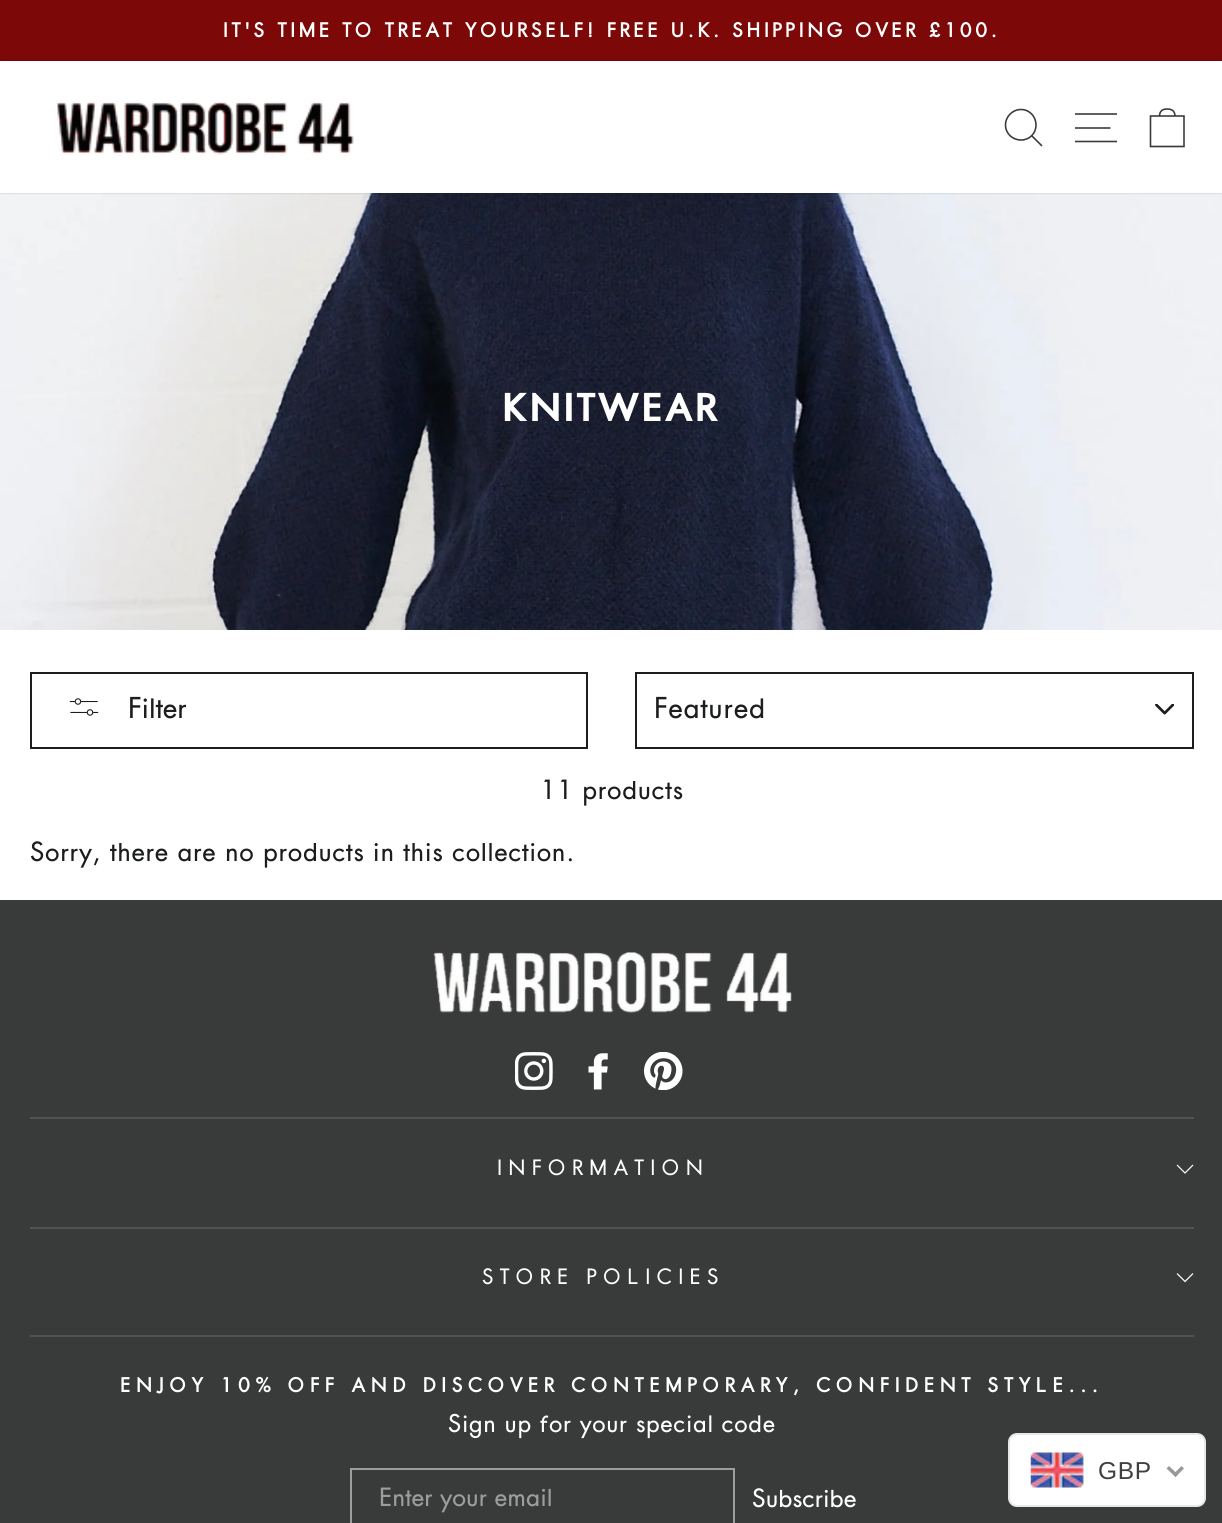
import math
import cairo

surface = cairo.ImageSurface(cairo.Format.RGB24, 1222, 1523)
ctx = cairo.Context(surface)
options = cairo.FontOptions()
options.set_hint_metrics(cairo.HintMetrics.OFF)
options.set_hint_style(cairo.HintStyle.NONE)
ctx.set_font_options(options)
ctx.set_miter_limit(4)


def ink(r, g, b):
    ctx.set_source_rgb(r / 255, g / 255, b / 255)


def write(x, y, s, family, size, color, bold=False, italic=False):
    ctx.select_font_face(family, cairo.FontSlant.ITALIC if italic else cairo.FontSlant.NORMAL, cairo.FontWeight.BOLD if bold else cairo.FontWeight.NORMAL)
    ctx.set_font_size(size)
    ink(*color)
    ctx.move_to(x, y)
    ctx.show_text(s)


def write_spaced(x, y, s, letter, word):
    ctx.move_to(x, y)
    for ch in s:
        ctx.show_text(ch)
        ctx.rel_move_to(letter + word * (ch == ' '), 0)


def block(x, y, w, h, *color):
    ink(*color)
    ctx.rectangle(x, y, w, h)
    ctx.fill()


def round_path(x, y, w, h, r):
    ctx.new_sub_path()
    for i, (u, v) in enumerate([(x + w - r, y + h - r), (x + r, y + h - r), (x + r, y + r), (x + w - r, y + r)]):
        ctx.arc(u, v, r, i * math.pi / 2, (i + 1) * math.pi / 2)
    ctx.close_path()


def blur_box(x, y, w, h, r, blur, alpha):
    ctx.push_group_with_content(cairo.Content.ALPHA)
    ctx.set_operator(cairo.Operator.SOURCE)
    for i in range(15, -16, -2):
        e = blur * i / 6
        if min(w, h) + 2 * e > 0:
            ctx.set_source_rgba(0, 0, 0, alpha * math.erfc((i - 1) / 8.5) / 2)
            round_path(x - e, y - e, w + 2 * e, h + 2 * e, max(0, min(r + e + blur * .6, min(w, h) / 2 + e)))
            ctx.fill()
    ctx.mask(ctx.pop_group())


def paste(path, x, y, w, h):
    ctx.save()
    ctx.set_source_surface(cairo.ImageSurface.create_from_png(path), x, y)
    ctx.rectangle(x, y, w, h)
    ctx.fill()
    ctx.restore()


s1 = dict(family="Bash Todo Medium", size=28, color=(28, 29, 29))
s2 = dict(family="Bash Todo Medium", size=24.5, color=(156, 157, 157))
s3 = dict(family="Bash Todo Medium", size=24.5, color=(255, 255, 255))

ink(255, 255, 255)
ctx.paint()
block(0, 0, 1222, 61, 124, 8, 8)
ctx.select_font_face("Bash Todo", cairo.FontSlant.NORMAL, cairo.FontWeight.BOLD)
ctx.set_font_size(18.9)
ink(255, 255, 255)
write_spaced(223, 37, "IT'S TIME TO TREAT YOURSELF! FREE U.K. SHIPPING OVER £100.", 3.78, 0)
paste("pic2.png", 0, 193, 1222, 437)
ink(0, 0, 0)
blur_box(0, 61, 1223, 132, 0, 1, 0.2)
block(0, 61, 1222, 132, 255, 255, 255)
paste("pic1.png", 56, 101, 298, 54)
ctx.new_path()
ctx.move_to(1036, 125)
ctx.curve_to(1036, 133.5, 1029.5, 140, 1021, 140)
ctx.curve_to(1012.5, 140, 1005.5, 133.5, 1005.5, 125)
ctx.curve_to(1005.5, 116.5, 1012.5, 109.5, 1021, 109.5)
ctx.curve_to(1029.5, 109.5, 1036, 116.5, 1036, 125)
ctx.close_path()
ctx.move_to(1042, 146)
ctx.line_to(1032, 136)
ink(57, 59, 59)
ctx.set_line_width(1.6)
ctx.stroke()
ctx.new_path()
ctx.move_to(1075, 114)
ctx.line_to(1117, 114)
ctx.move_to(1075, 128)
ctx.line_to(1110.5, 128)
ctx.move_to(1075, 141.5)
ctx.line_to(1117, 141.5)
ctx.stroke()
ctx.new_path()
ctx.move_to(1150.5, 116)
ctx.line_to(1184, 116)
ctx.line_to(1184, 146.5)
ctx.line_to(1150.5, 146.5)
ctx.close_path()
ctx.move_to(1159.5, 116.5)
ctx.curve_to(1159.5, 110.5, 1163, 109, 1167, 109)
ctx.curve_to(1171.5, 109, 1175, 110.5, 1175, 116.5)
ctx.stroke()
ctx.select_font_face("Bash Todo Black")
ctx.set_font_size(37.25)
ink(255, 255, 255)
write_spaced(502, 421, "KNITWEAR", 1.75, 0)
ctx.rectangle(31, 673, 556, 75)
ink(28, 29, 29)
ctx.set_line_width(2)
ctx.stroke()
paste("pic3.png", 69, 698, 30, 18)
write(128, 718, "Filter", **s1)
paste("pic4.png", 1155, 704, 19, 11)
ctx.rectangle(636, 673, 557, 75)
ctx.stroke()
write_spaced(654, 718, "Featured", 0.75, 0)
ctx.set_font_size(25.75)
write_spaced(540, 799, "11 products", 0.65, 0)
write_spaced(30, 861, "Sorry, there are no products in this collection.", 0.65, 0)
block(0, 900, 1222, 623, 57, 59, 59)
paste("pic5.png", 433, 952, 359, 61)
paste("pic6.png", 515, 1052, 38, 38)
paste("pic7.png", 588, 1053, 20, 37)
paste("pic8.png", 644, 1052, 39, 38)
block(30, 1117, 1164, 2, 81, 83, 83)
ctx.set_font_size(20.6)
ink(255, 255, 255)
write_spaced(497, 1175, "INFORMATION", 6.25, 0)
ctx.new_path()
ctx.move_to(1177, 1165)
ctx.line_to(1185, 1173)
ctx.line_to(1193, 1165)
ctx.set_line_width(1.2)
ctx.stroke()
block(30, 1227, 1164, 2, 81, 83, 83)
ink(255, 255, 255)
write_spaced(482, 1284, "STORE POLICIES", 6.25, 0)
ctx.new_path()
ctx.move_to(1177, 1273.5)
ctx.line_to(1185, 1281.5)
ctx.line_to(1193, 1273.5)
ctx.stroke()
block(30, 1335, 1164, 2, 81, 83, 83)
ctx.select_font_face("Bash Todo", cairo.FontSlant.NORMAL, cairo.FontWeight.BOLD)
ctx.set_font_size(19.05)
ink(255, 255, 255)
write_spaced(120, 1392, "ENJOY 10% OFF AND DISCOVER CONTEMPORARY, CONFIDENT STYLE...", 5.7, 0)
ctx.select_font_face("Bash Todo Medium")
ctx.set_font_size(23.75)
write_spaced(448, 1432, "Sign up for your special code", 0.65, 0)
ctx.rectangle(351, 1469, 383, 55)
ink(156, 157, 157)
ctx.set_line_width(2)
ctx.stroke()
write(379, 1506, "Enter your email", **s2)
write(752, 1507, "Subscribe", **s3)
round_path(1009, 1434, 196, 72, 8)
ctx.fill_preserve()
ink(232, 232, 232)
ctx.stroke()
paste("pic9.png", 1030, 1452, 54, 36)
ctx.select_font_face("Liberation Sans")
ink(64, 63, 63)
write_spaced(1098, 1479, "GBP", 0.65, 0)
ink(153, 153, 153)
ctx.new_path()
ctx.move_to(1181.5, 1466)
ctx.line_to(1184, 1468.5)
ctx.line_to(1175.5, 1477)
ctx.line_to(1173, 1474.5)
ctx.close_path()
ctx.fill()
ctx.new_path()
ctx.move_to(1169, 1466)
ctx.line_to(1178, 1474.5)
ctx.line_to(1175.5, 1477)
ctx.line_to(1166.5, 1468.5)
ctx.close_path()
ctx.fill()
surface.write_to_png("screenshot.png")
